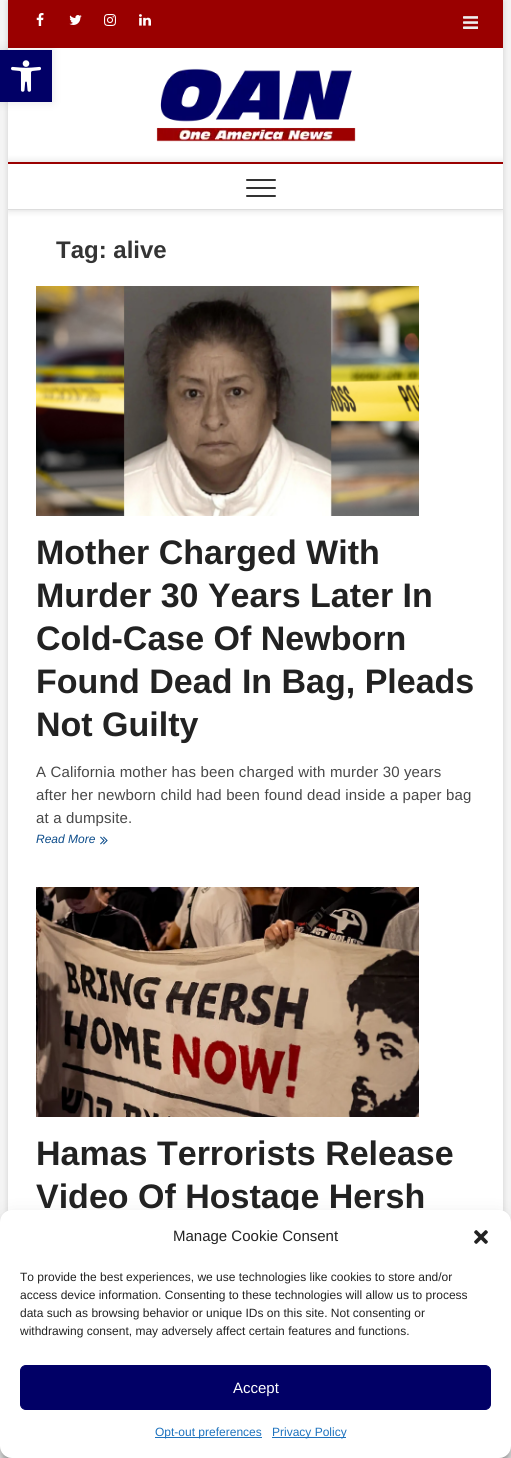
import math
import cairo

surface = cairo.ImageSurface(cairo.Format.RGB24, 511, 1458)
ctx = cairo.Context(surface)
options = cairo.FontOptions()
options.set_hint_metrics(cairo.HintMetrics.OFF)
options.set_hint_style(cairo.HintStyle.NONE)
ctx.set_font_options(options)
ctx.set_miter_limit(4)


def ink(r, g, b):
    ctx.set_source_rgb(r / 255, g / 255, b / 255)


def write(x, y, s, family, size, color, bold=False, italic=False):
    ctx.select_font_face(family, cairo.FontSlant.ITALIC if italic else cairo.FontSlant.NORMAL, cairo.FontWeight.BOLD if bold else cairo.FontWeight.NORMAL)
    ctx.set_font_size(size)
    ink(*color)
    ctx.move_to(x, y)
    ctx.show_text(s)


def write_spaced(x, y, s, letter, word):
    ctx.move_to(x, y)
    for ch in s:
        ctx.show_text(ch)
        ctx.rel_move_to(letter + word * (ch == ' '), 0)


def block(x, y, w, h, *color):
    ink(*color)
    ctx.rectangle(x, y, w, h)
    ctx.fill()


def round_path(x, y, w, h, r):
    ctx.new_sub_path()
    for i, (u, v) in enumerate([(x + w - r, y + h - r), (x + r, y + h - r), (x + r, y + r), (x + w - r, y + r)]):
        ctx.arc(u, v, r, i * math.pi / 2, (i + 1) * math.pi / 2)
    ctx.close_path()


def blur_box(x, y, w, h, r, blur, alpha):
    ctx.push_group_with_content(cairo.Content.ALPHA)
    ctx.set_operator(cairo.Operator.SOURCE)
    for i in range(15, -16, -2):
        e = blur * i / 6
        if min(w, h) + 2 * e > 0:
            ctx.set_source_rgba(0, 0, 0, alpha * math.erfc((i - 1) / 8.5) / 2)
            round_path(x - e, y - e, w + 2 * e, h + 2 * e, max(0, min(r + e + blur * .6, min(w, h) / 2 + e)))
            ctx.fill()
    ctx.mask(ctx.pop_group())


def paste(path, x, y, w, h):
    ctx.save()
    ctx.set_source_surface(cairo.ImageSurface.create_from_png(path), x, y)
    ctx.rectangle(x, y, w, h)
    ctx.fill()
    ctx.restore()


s1 = dict(family="Liberation Sans", size=24, color=(52, 52, 52), bold=True)
s2 = dict(family="Liberation Sans", size=34, color=(34, 34, 34), bold=True)
s3 = dict(family="Liberation Sans", size=12, color=(12, 76, 138), italic=True)
s4 = dict(family="Liberation Sans", size=15, color=(34, 34, 34))
s5 = dict(family="Liberation Sans", size=12, color=(34, 34, 34))
s6 = dict(family="Liberation Sans", size=15, color=(255, 255, 255))
s7 = dict(family="Liberation Sans", size=12, color=(30, 115, 190))

ink(244, 244, 244)
ctx.paint()
ink(0, 0, 0)
blur_box(8, 1, 495, 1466, 0, 3, 0.15)
block(8, 48, 495, 1410, 255, 255, 255)
block(8, 0, 495, 48, 154, 0, 0)
ink(0, 0, 0)
blur_box(0, 50, 52, 52, 0, 5, 0.1)
block(0, 50, 52, 52, 1, 0, 102)
paste("pic1.png", 11, 60, 30, 32)
paste("pic2.png", 36, 13, 8, 13)
paste("pic3.png", 69, 15, 13, 10)
paste("pic4.png", 104, 14, 12, 12)
paste("pic5.png", 139, 14, 12, 12)
paste("pic6.png", 463, 16, 15, 13)
paste("pic7.png", 156, 68, 200, 74)
ctx.save()
ctx.rectangle(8, 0, 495, 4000)
ctx.clip()
ctx.set_fill_rule(cairo.FillRule.EVEN_ODD)
ctx.new_path()
ctx.move_to(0, 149)
ctx.line_to(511, 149)
ctx.line_to(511, 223)
ctx.line_to(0, 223)
ctx.close_path()
ctx.move_to(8, 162)
ctx.line_to(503, 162)
ctx.line_to(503, 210)
ctx.line_to(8, 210)
ctx.close_path()
ctx.clip()
ink(0, 0, 0)
blur_box(8, 162, 495, 48, 0, 4, 0.15)
ctx.restore()
block(8, 162, 495, 2, 154, 0, 0)
block(8, 209, 495, 1, 221, 221, 221)
ink(51, 51, 51)
round_path(246, 187, 30, 2, 1)
ctx.fill()
round_path(246, 179, 30, 2, 1)
ctx.fill()
round_path(246, 195, 30, 2, 1)
ctx.fill()
write(56, 258, "Tag: alive", **s1)
paste("pic8.png", 36, 286, 383, 230)
write(36, 564, "Mother Charged With", **s2)
write(36, 607, "Murder 30 Years Later In", **s2)
write(36, 650, "Cold-Case Of Newborn", **s2)
write(36, 693, "Found Dead In Bag, Pleads", **s2)
write(36, 736, "Not Guilty", **s2)
ctx.select_font_face("Liberation Sans")
ctx.set_font_size(15)
ink(72, 72, 72)
write_spaced(36, 777, "A California mother has been charged with murder 30 years", 0.15, 0)
write_spaced(36, 800, "after her newborn child had been found dead inside a paper bag", 0.15, 0)
write_spaced(36, 823, "at a dumpsite.", 0.15, 0)
write(36, 843, "Read More", **s3)
paste("pic9.png", 100, 836, 8, 9)
paste("pic10.png", 36, 887, 383, 230)
write(36, 1165, "Hamas Terrorists Release", **s2)
write(36, 1208, "Video Of Hostage Hersh", **s2)
ink(0, 0, 0)
blur_box(0, 1216, 511, 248, 12, 3, 0.23)
blur_box(0, 1220, 511, 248, 12, 10, 0.19)
ink(128, 128, 128)
blur_box(441, 1384, 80, 60, 2, 2.5, 1)
ink(255, 255, 255)
round_path(0, 1210, 511, 248, 12)
ctx.fill()
write(173, 1241, "Manage Cookie Consent", **s4)
paste("pic11.png", 474, 1230, 14, 14)
write(20, 1281, "To provide the best experiences, we use technologies like cookies to store and/or", **s5)
write(20, 1299, "access device information. Consenting to these technologies will allow us to process", **s5)
write(20, 1317, "data such as browsing behavior or unique IDs on this site. Not consenting or", **s5)
write(20, 1335, "withdrawing consent, may adversely affect certain features and functions.", **s5)
ink(1, 0, 102)
round_path(20.5, 1365.5, 470, 44, 5.5)
ctx.fill_preserve()
ctx.set_line_width(1)
ctx.stroke()
write(233, 1393, "Accept", **s6)
block(155, 1437, 107, 1, 30, 115, 190)
write(155, 1436, "Opt-out preferences", **s7)
block(272, 1437, 74, 1, 30, 115, 190)
write(272, 1436, "Privacy Policy", **s7)
surface.write_to_png("screenshot.png")
